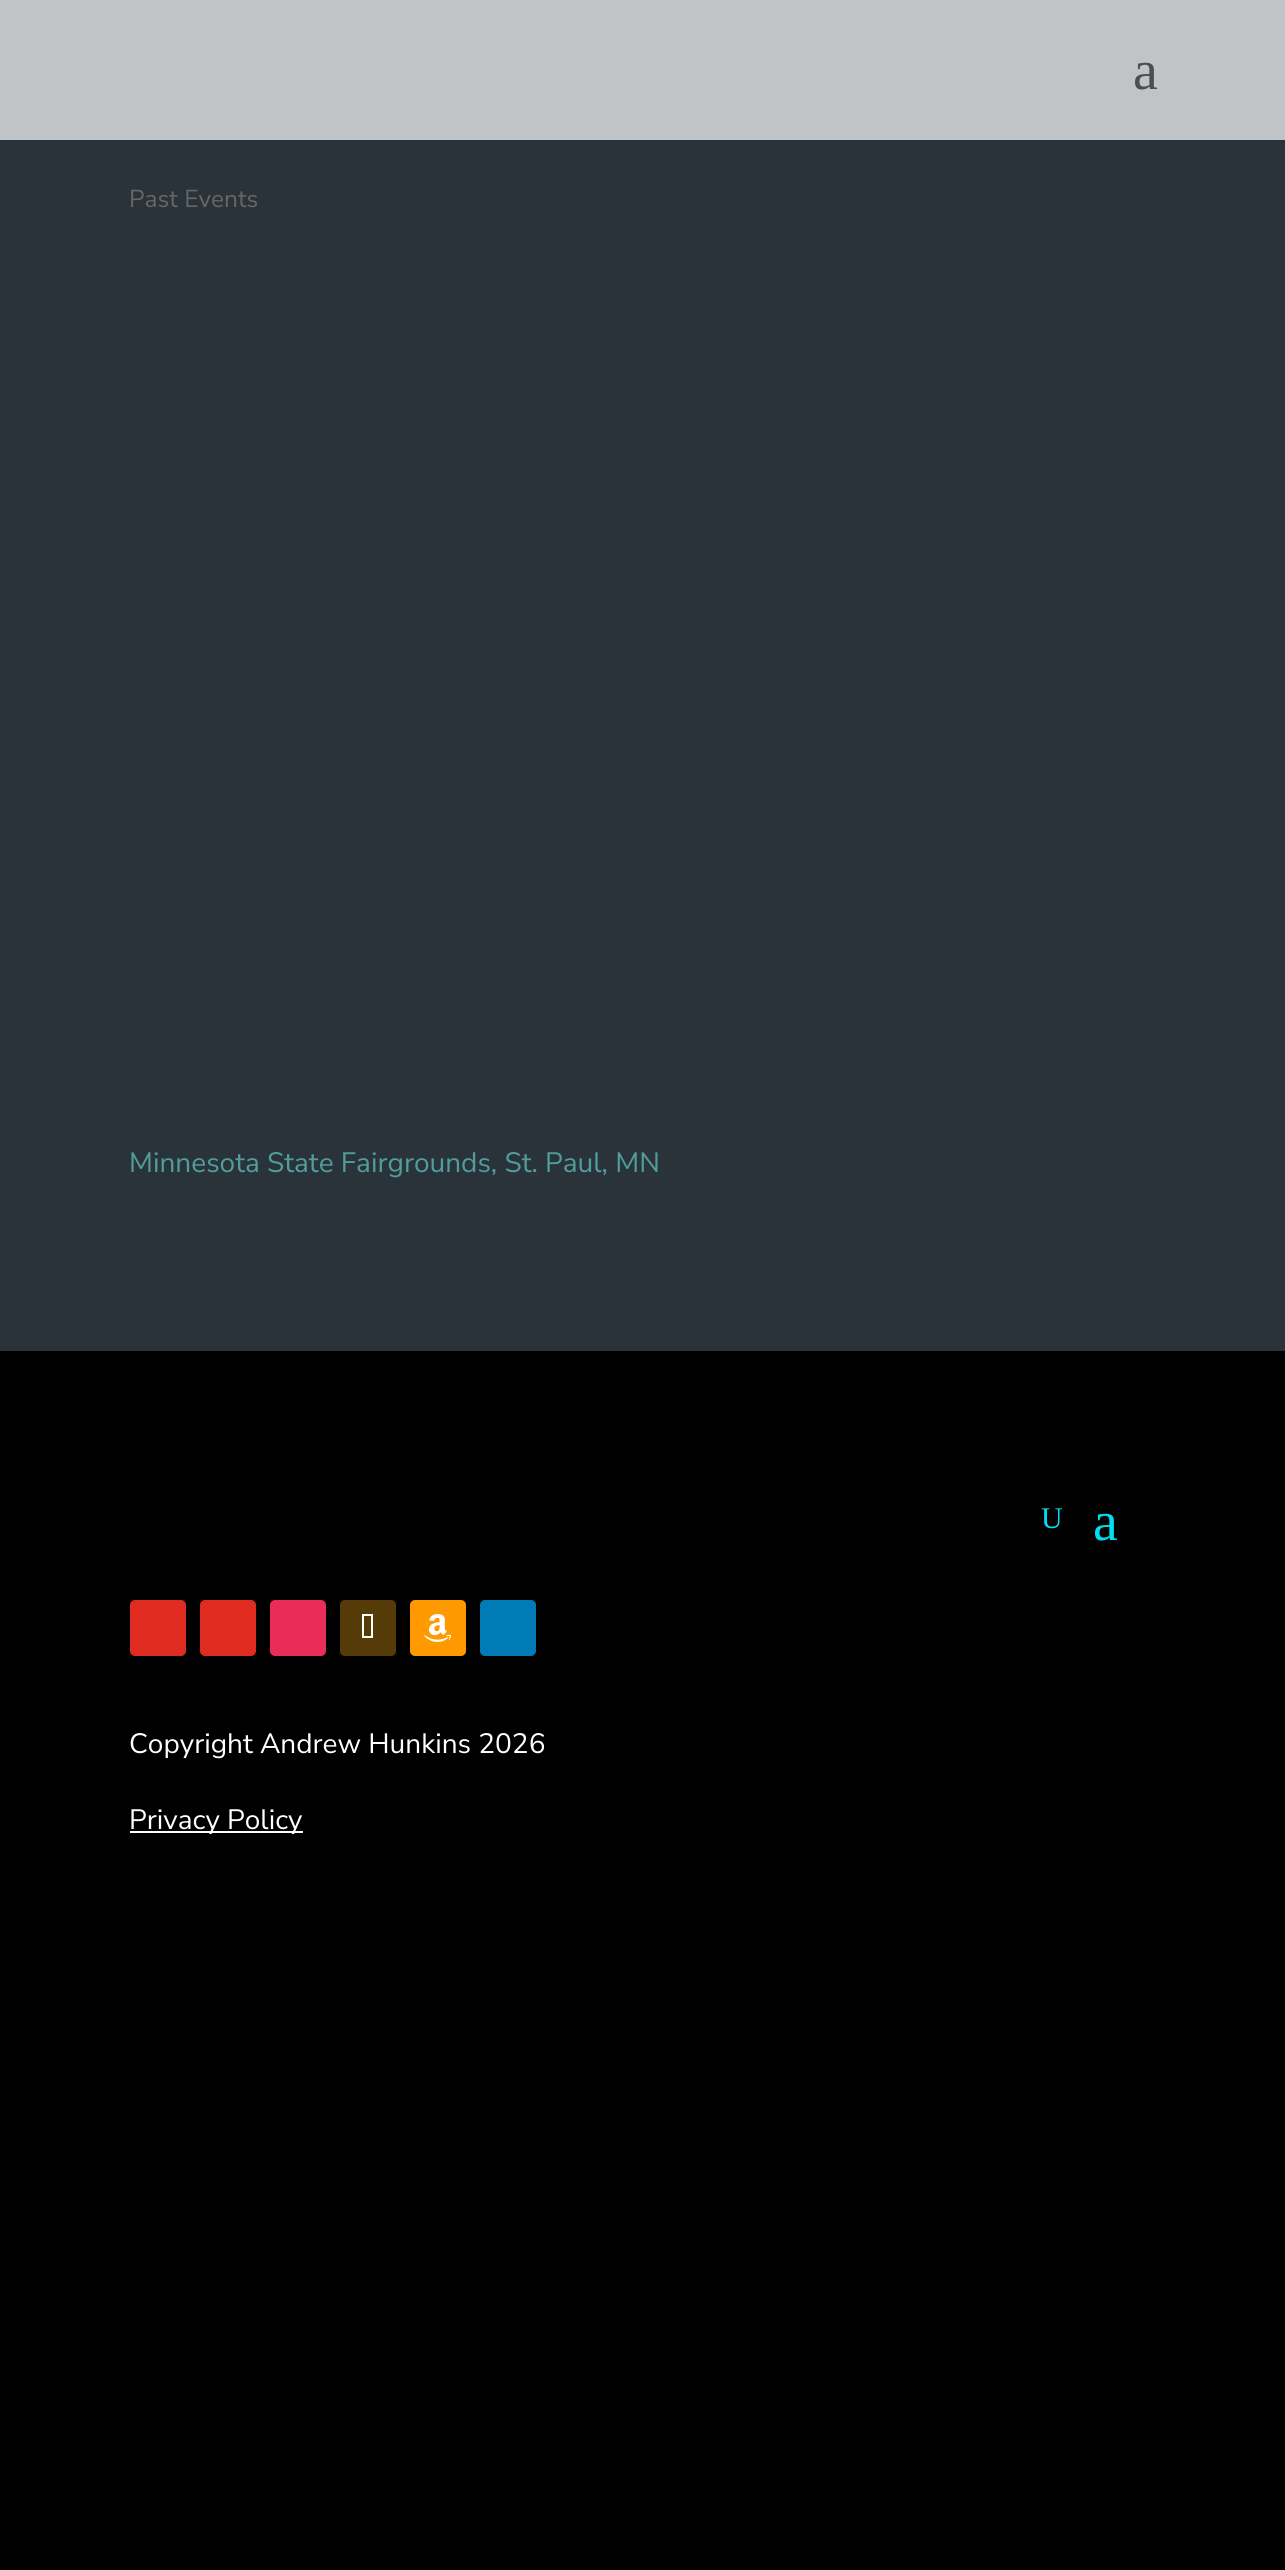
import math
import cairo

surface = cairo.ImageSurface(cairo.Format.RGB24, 1285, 2570)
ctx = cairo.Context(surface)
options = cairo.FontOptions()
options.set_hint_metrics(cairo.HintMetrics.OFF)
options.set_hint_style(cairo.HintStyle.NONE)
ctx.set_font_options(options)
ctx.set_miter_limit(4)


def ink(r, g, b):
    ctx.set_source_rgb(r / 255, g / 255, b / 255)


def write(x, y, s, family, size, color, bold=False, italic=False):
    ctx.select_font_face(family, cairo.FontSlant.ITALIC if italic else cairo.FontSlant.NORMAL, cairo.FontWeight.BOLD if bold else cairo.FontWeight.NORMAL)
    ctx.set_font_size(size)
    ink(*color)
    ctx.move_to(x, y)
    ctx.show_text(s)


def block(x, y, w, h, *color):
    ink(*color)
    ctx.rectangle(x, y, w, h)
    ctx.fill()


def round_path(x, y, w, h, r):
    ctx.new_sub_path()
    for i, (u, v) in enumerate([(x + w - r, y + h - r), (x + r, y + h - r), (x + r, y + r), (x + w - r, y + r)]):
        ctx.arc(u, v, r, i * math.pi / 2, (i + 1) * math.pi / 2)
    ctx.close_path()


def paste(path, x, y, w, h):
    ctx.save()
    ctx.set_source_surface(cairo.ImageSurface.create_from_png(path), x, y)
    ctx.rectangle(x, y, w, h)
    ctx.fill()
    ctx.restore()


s1 = dict(family="Liberation Serif", size=56, color=(77, 78, 79))
s2 = dict(family="Nunito Sans ExtraLight", size=24.5, color=(102, 102, 102))
s3 = dict(family="Nunito Sans ExtraLight", size=28, color=(80, 158, 155))
s4 = dict(family="Liberation Serif", size=30, color=(0, 222, 242))
s5 = dict(family="Liberation Serif", size=56, color=(0, 222, 242))
s6 = dict(family="Nunito Sans ExtraLight", size=28, color=(255, 255, 255))

ink(0, 0, 0)
ctx.paint()
block(0, 0, 1285, 1351, 43, 51, 58)
ctx.set_source_rgba(1, 1, 1, 0.71)
ctx.rectangle(0, 0, 1285, 140)
ctx.fill()
write(1133, 89, "a", **s1)
write(129, 207, "Past Events", **s2)
write(129, 1172, "Minnesota State Fairgrounds, St. Paul, MN", **s3)
write(1041, 1528, "U", **s4)
write(1093, 1540, "a", **s5)
ink(224, 43, 32)
round_path(130, 1600, 56, 56, 5)
ctx.fill()
round_path(200, 1600, 56, 56, 5)
ctx.fill()
ink(234, 44, 89)
round_path(270, 1600, 56, 56, 5)
ctx.fill()
ink(85, 59, 8)
round_path(340, 1600, 56, 56, 5)
ctx.fill()
ink(255, 255, 255)
ctx.new_path()
ctx.move_to(364, 1636)
ctx.line_to(364, 1616)
ctx.line_to(371, 1616)
ctx.line_to(371, 1636)
ctx.close_path()
ctx.move_to(362, 1638)
ctx.line_to(373, 1638)
ctx.line_to(373, 1614)
ctx.line_to(362, 1614)
ctx.close_path()
ctx.fill()
ink(255, 153, 0)
round_path(410, 1600, 56, 56, 5)
ctx.fill()
paste("pic1.png", 424, 1614, 28, 28)
ink(0, 123, 182)
round_path(480, 1600, 56, 56, 5)
ctx.fill()
write(129, 1753, "Copyright Andrew Hunkins 2026", **s6)
block(130, 1831, 173, 2, 255, 255, 255)
write(129, 1829, "Privacy Policy", **s6)
surface.write_to_png("screenshot.png")
